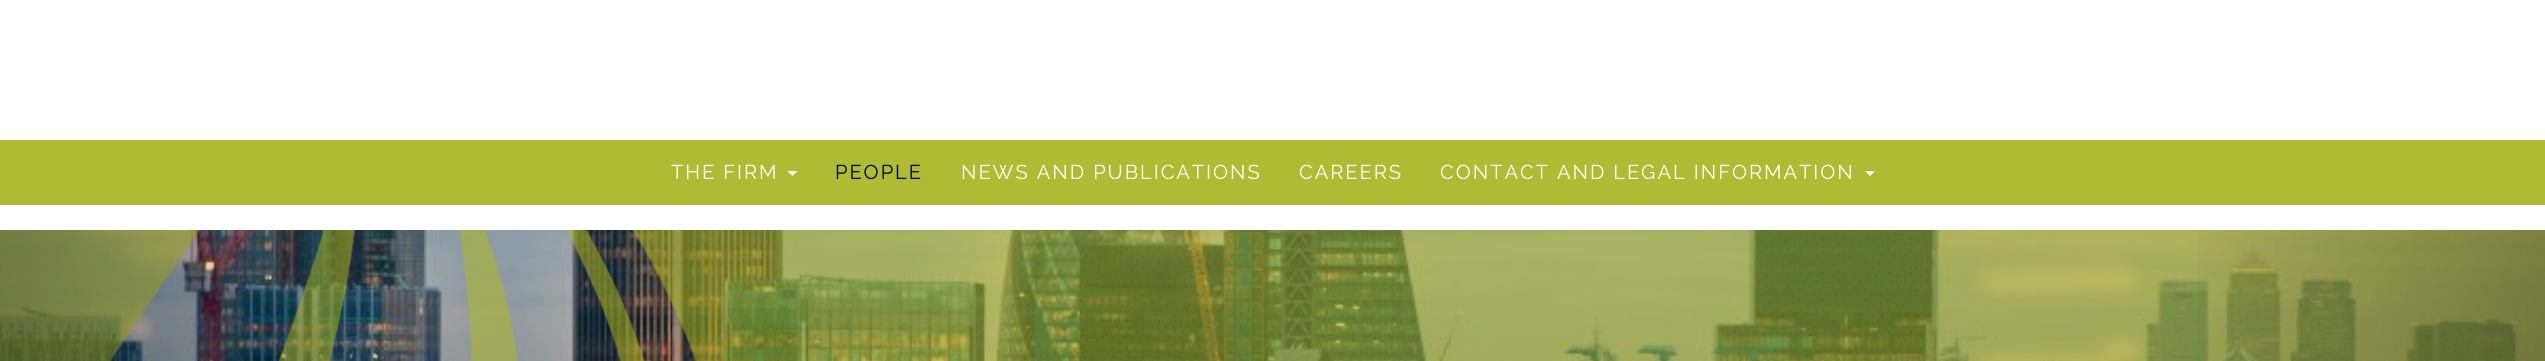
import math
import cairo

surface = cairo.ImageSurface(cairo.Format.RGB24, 2545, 361)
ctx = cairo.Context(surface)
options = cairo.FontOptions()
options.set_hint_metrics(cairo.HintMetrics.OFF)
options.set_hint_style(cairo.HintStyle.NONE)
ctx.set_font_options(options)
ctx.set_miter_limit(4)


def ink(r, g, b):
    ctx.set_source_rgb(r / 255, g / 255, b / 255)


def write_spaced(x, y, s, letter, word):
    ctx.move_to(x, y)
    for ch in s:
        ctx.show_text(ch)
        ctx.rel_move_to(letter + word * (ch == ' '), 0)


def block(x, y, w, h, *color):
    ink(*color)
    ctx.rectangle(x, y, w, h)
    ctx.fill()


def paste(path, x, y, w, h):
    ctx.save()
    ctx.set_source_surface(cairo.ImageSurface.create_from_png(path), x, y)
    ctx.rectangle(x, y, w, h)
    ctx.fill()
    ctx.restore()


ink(255, 255, 255)
ctx.paint()
block(0, 140, 2545, 65, 174, 187, 51)
ctx.select_font_face("Raleway")
ctx.set_font_size(20)
ink(255, 255, 255)
write_spaced(671, 179, "THE FIRM", 2, 0)
ctx.new_path()
ctx.move_to(787.5, 171)
ctx.line_to(797.5, 171)
ctx.line_to(792.5, 176)
ctx.close_path()
ctx.fill()
ink(0, 0, 0)
write_spaced(835, 179, "PEOPLE", 2, 0)
ink(255, 255, 255)
write_spaced(961, 179, "NEWS AND PUBLICATIONS", 2, 0)
write_spaced(1299, 179, "CAREERS", 2, 0)
write_spaced(1440, 179, "CONTACT AND LEGAL INFORMATION", 2, 0)
ctx.new_path()
ctx.move_to(1865, 171)
ctx.line_to(1875, 171)
ctx.line_to(1870, 176)
ctx.close_path()
ctx.fill()
paste("pic1.png", 0, 230, 2545, 131)
paste("pic2.png", 0, 230, 2545, 131)
gradient = cairo.LinearGradient(0, 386, 381, 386)
gradient.add_color_stop_rgba(0, 0, 0, 0, 0.25)
gradient.add_color_stop_rgba(1, 0, 0, 0, 0)
ctx.set_source(gradient)
ctx.rectangle(0, 230, 348, 131)
ctx.fill()
gradient = cairo.LinearGradient(2164, 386, 2545, 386)
gradient.add_color_stop_rgba(0, 0, 0, 0, 0)
gradient.add_color_stop_rgba(1, 0, 0, 0, 0.25)
ctx.set_source(gradient)
ctx.rectangle(2197, 230, 348, 131)
ctx.fill()
surface.write_to_png("screenshot.png")
